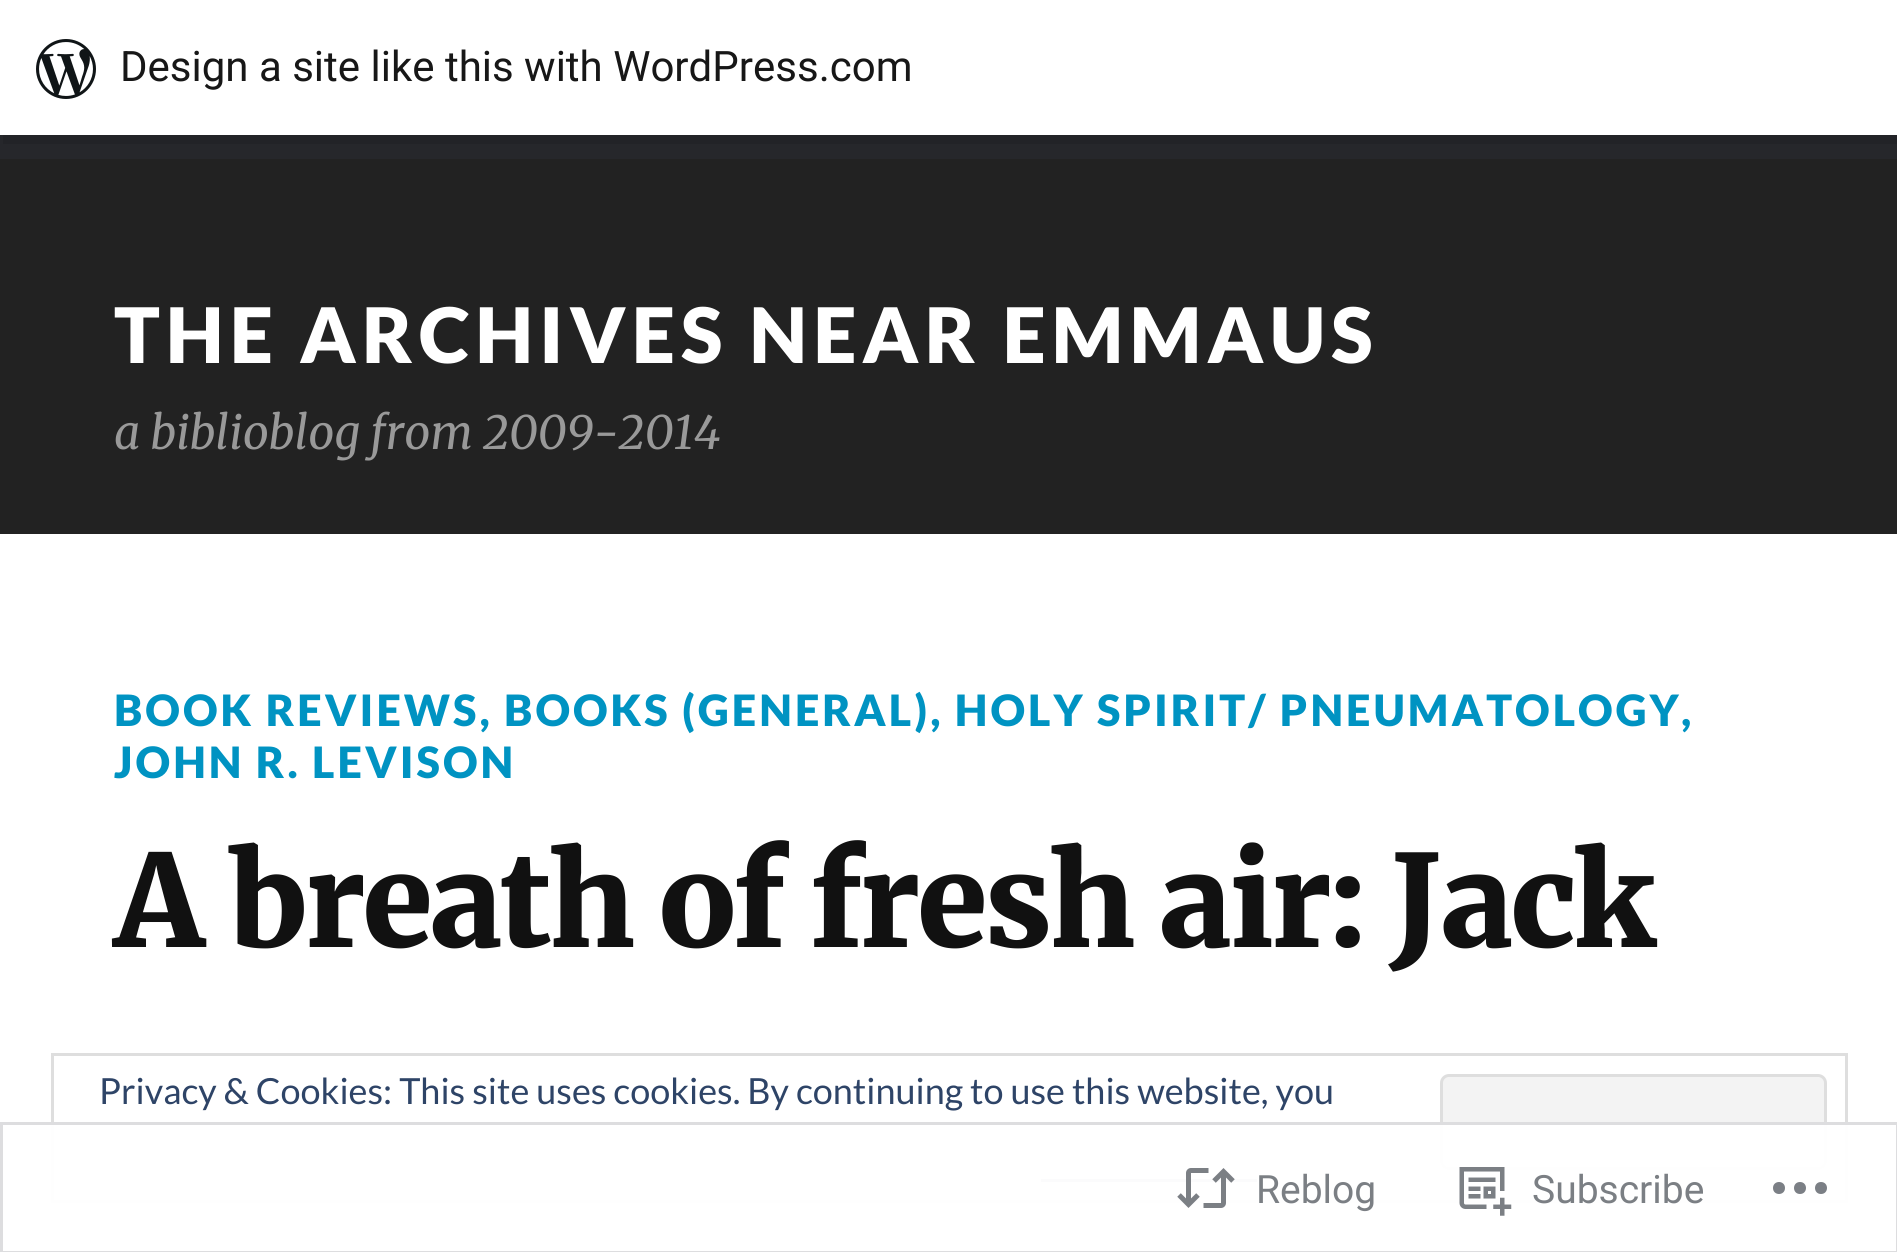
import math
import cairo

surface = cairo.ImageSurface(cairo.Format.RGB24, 1897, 1252)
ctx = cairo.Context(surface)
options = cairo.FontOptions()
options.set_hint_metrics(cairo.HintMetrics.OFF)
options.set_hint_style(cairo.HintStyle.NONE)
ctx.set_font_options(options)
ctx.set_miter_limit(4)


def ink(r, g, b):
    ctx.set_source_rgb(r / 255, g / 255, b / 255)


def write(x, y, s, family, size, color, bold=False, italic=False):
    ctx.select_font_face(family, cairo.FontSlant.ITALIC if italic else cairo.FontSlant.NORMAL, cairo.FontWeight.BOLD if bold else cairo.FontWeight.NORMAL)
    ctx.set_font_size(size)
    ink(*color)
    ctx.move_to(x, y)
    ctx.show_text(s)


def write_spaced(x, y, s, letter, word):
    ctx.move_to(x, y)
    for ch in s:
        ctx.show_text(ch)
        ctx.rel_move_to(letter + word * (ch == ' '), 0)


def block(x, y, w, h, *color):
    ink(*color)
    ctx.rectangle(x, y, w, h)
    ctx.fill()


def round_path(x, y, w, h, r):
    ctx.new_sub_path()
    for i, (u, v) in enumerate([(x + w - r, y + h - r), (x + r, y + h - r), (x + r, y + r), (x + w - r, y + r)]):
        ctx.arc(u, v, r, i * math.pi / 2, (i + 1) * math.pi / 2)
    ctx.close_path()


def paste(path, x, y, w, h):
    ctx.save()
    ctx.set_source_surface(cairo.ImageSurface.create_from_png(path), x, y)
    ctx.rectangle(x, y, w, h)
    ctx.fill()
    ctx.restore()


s1 = dict(family="Roboto", size=42, color=(23, 23, 23))
s2 = dict(family="Merriweather Light", size=45.9, color=(153, 153, 153), italic=True)
s3 = dict(family="Lato", size=36, color=(46, 68, 103))
s4 = dict(family="Roboto", size=39, color=(123, 127, 132))

ink(255, 255, 255)
ctx.paint()
block(0, 135, 1897, 24, 38, 39, 43)
ink(34, 35, 39)
ctx.new_path()
ctx.move_to(3, 135)
ctx.line_to(3, 144)
ctx.line_to(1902, 144)
ctx.line_to(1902, 9)
ctx.line_to(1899, 9)
ctx.line_to(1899, 135)
ctx.close_path()
ctx.fill()
paste("pic1.png", 36, 39, 60, 60)
write(120, 81, "Design a site like this with WordPress.com", **s1)
block(0, 159, 1897, 375, 34, 34, 34)
ctx.select_font_face("Lato Black")
ctx.set_font_size(76.5)
ink(255, 255, 255)
write_spaced(114, 363, "THE ARCHIVES NEAR EMMAUS", 6, 0)
write(114, 449, "a biblioblog from 2009-2014", **s2)
ctx.select_font_face("Lato Black")
ctx.set_font_size(43.2)
ink(0, 147, 194)
write_spaced(114, 726, "BOOK REVIEWS, BOOKS (GENERAL), HOLY SPIRIT/ PNEUMATOLOGY", 3, 0)
write_spaced(1681, 726, ",", 3, 0)
write_spaced(114, 778, "JOHN R. LEVISON", 3, 0)
ctx.select_font_face("Merriweather Black")
ctx.set_font_size(127.5)
ink(17, 17, 17)
write_spaced(114, 947, "A breath of fresh air: Jack", -3, 0)
ctx.rectangle(52.5, 1054.5, 1794, 147)
ink(222, 222, 222)
ctx.set_line_width(3)
ctx.stroke()
write(99, 1104, "Privacy & Cookies: This site uses cookies. By continuing to use this website, you", **s3)
ink(243, 243, 243)
round_path(1441.5, 1075.5, 384, 93, 7.5)
ctx.fill_preserve()
ink(222, 222, 222)
ctx.stroke()
block(1041, 1179, 216, 3, 46, 68, 103)
ctx.set_source_rgba(1, 1, 1, 0.98)
ctx.rectangle(51, 1122, 1797, 81)
ctx.fill()
ctx.rectangle(1.5, 1123.5, 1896, 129)
ctx.set_source_rgba(0.863, 0.863, 0.871, 0.98)
ctx.stroke()
paste("pic2.png", 1177, 1168, 58, 40)
write(1256, 1203, "Reblog", **s4)
paste("pic3.png", 1459, 1167, 53, 49)
write(1532, 1203, "Subscribe", **s4)
ink(123, 127, 133)
ctx.new_path()
ctx.move_to(1785, 1188)
ctx.curve_to(1785, 1196, 1773, 1196, 1773, 1188)
ctx.curve_to(1773, 1180, 1785, 1180, 1785, 1188)
ctx.close_path()
ctx.move_to(1821, 1182)
ctx.curve_to(1813, 1182, 1813, 1194, 1821, 1194)
ctx.curve_to(1829, 1194, 1829, 1182, 1821, 1182)
ctx.close_path()
ctx.move_to(1800, 1182)
ctx.curve_to(1792, 1182, 1792, 1194, 1800, 1194)
ctx.curve_to(1808, 1194, 1808, 1182, 1800, 1182)
ctx.close_path()
ctx.fill()
surface.write_to_png("screenshot.png")
